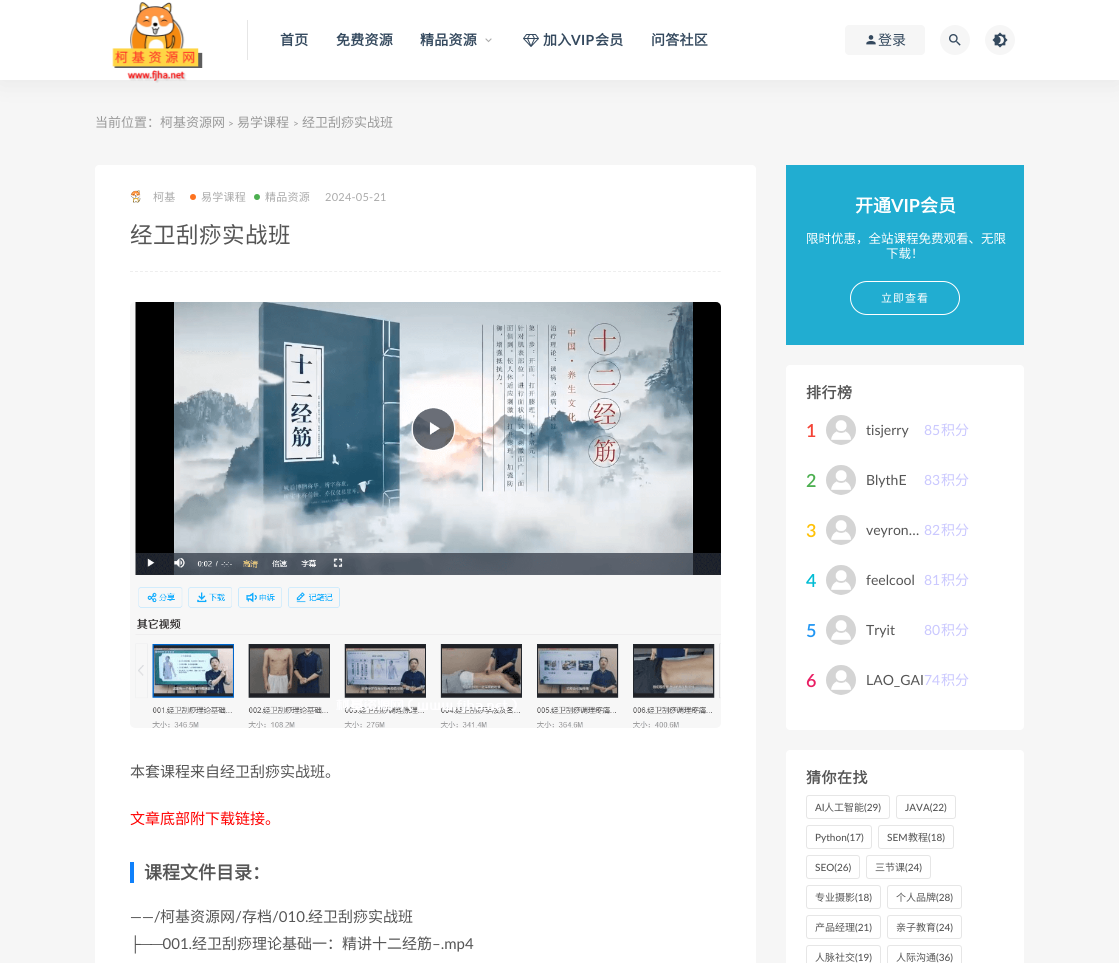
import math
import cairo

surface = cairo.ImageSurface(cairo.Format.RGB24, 1119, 963)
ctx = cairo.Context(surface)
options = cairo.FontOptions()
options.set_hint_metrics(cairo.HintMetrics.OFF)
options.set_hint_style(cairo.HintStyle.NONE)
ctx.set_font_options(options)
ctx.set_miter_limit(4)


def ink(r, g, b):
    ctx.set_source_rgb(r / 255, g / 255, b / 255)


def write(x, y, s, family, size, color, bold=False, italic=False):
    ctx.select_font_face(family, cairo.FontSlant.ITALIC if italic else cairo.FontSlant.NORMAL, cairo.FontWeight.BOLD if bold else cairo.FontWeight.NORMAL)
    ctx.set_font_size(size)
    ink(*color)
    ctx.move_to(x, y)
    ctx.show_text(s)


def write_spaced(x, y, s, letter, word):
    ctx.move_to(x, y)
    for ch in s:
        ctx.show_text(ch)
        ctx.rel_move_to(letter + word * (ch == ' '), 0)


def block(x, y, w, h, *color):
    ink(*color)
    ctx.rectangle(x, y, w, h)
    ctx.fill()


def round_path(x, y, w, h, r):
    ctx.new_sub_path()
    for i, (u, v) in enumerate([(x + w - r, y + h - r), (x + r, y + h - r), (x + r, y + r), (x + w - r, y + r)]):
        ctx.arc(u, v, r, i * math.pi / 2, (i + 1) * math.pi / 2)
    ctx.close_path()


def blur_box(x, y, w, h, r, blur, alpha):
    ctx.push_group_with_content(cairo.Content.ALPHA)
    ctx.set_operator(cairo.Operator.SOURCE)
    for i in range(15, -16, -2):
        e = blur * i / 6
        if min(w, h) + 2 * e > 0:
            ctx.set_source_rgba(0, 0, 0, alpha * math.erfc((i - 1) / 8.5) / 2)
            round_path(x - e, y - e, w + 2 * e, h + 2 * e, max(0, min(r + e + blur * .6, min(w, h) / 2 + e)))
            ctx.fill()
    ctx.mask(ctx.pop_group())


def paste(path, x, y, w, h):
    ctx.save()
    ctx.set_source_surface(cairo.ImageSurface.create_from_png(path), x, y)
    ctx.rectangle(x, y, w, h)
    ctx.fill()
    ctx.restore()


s1 = dict(family="Noto Sans CJK SC", size=14, color=(52, 73, 94))
s2 = dict(family="Noto Sans CJK SC", size=13, color=(153, 153, 153))
s3 = dict(family="Lato", size=10, color=(153, 153, 153))
s4 = dict(family="Noto Sans CJK SC", size=15, color=(85, 85, 85))
s5 = dict(family="Noto Sans CJK SC", size=15, color=(255, 0, 0))
s6 = dict(family="Noto Sans CJK SC", size=18, color=(85, 85, 85), bold=True)
s7 = dict(family="Lato", size=15, color=(85, 85, 85))
s8 = dict(family="Liberation Sans", size=15, color=(85, 85, 85))
s9 = dict(family="Noto Sans CJK SC", size=18, color=(255, 255, 255), bold=True)
s10 = dict(family="Lato", size=18, color=(255, 255, 255), bold=True)
s11 = dict(family="Noto Sans CJK SC", size=12.5, color=(255, 255, 255))
s12 = dict(family="Lato SemiBold", size=18, color=(244, 67, 54))
s13 = dict(family="Lato", size=14, color=(85, 85, 85))
s14 = dict(family="Lato", size=14, color=(202, 200, 255))
s15 = dict(family="Noto Sans CJK SC", size=14, color=(202, 200, 255))
s16 = dict(family="Lato SemiBold", size=18, color=(76, 175, 80))
s17 = dict(family="Lato SemiBold", size=18, color=(255, 193, 7))
s18 = dict(family="Lato SemiBold", size=18, color=(0, 188, 212))
s19 = dict(family="Lato SemiBold", size=18, color=(33, 150, 243))
s20 = dict(family="Lato SemiBold", size=18, color=(233, 30, 99))
s21 = dict(family="Lato Medium", size=10, color=(85, 85, 85))
s22 = dict(family="Noto Sans CJK SC", size=10, color=(85, 85, 85))

ink(246, 246, 246)
ctx.paint()
ink(0, 0, 0)
blur_box(0, 0, 1119, 80, 0, 15, 0.07)
block(0, 0, 1119, 80, 255, 255, 255)
paste("pic1.png", 112, 2, 91, 81)
block(247, 20, 1, 40, 230, 230, 230)
ctx.select_font_face("Noto Sans CJK SC", cairo.FontSlant.NORMAL, cairo.FontWeight.BOLD)
ctx.set_font_size(14)
ink(52, 73, 94)
write_spaced(280, 45, "首页", 0.25, 0)
write_spaced(336, 45, "免费资源", 0.25, 0)
write_spaced(420, 45, "精品资源", 0.25, 0)
paste("pic2.png", 485, 38, 7, 5)
paste("pic3.png", 523, 34, 16, 13)
write_spaced(543, 45, "加入", 0.25, 0)
ctx.select_font_face("Lato", cairo.FontSlant.NORMAL, cairo.FontWeight.BOLD)
write_spaced(571, 45, "VIP", 0.25, 0)
ctx.select_font_face("Noto Sans CJK SC", cairo.FontSlant.NORMAL, cairo.FontWeight.BOLD)
write_spaced(595, 45, "会员", 0.25, 0)
write_spaced(651, 45, "问答社区", 0.25, 0)
ink(246, 246, 246)
round_path(845, 25, 80, 30, 4)
ctx.fill()
paste("pic4.png", 866, 35, 10, 10)
write(878, 45, "登录", **s1)
ink(246, 246, 246)
ctx.new_path()
ctx.arc(955, 40, 15, 0, 2 * math.pi)
ctx.fill()
paste("pic5.png", 949, 34, 12, 12)
ctx.arc(1000, 40, 15, 0, 2 * math.pi)
ctx.fill()
paste("pic6.png", 992, 32, 16, 16)
write(95, 127, "当前位置：柯基资源网", **s2)
write(228, 127, ">", **s3)
write(237, 127, "易学课程", **s2)
write(293, 127, ">", **s3)
write(302, 127, "经卫刮痧实战班", **s2)
ink(255, 255, 255)
round_path(95, 165, 661, 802, 4)
ctx.fill()
paste("pic7.png", 130, 190, 11, 13)
ctx.set_font_size(11)
ink(170, 170, 170)
write_spaced(153, 201, "柯基", 0.25, 0)
ink(253, 114, 31)
ctx.new_path()
ctx.arc(193, 197, 3, 0, 2 * math.pi)
ctx.fill()
ink(170, 170, 170)
write_spaced(201, 201, "易学课程", 0.25, 0)
ink(76, 175, 80)
ctx.new_path()
ctx.arc(257, 197, 3, 0, 2 * math.pi)
ctx.fill()
ink(170, 170, 170)
write_spaced(265, 201, "精品资源", 0.25, 0)
ctx.select_font_face("Lato")
write_spaced(325, 201, "2024-05-21", 0.25, 0)
ctx.new_path()
ctx.move_to(130, 271.5)
ctx.line_to(721, 271.5)
ink(238, 238, 238)
ctx.set_line_width(1)
ctx.set_dash([3, 1.98])
ctx.stroke()
ctx.select_font_face("Noto Sans CJK SC")
ctx.set_font_size(22.5)
ink(85, 85, 85)
write_spaced(130, 243, "经卫刮痧实战班", 0.5, 0)
paste("pic8.png", 130, 302, 591, 426)
write(130, 777, "本套课程来自经卫刮痧实战班。", **s4)
write(130, 824, "文章底部附下载链接。", **s5)
block(130, 862, 4, 21, 15, 129, 251)
write(144, 879, "课程文件目录：", **s6)
write(130, 922, "——/", **s7)
write(160, 922, "柯基资源网", **s4)
write(235, 922, "/", **s7)
write(242, 922, "存档", **s4)
write(272, 922, "/010.", **s7)
write(308, 922, "经卫刮痧实战班", **s4)
write(130, 949, "├", **s8)
write(140, 949, "──001.", **s7)
write(192, 949, "经卫刮痧理论基础一：精讲十二经筋", **s4)
write(432, 949, "–.mp4", **s7)
block(786, 165, 238, 180, 33, 173, 209)
write(855, 212, "开通", **s9)
write(891, 212, "VIP", **s10)
write(920, 212, "会员", **s9)
write(806, 243, "限时优惠，全站课程免费观看、无限", **s11)
write(886, 258, "下载！", **s11)
round_path(850.5, 281.5, 109, 33, 16.5)
ctx.set_dash([])
ctx.stroke()
ctx.set_font_size(11)
write_spaced(881, 302, "立即查看", 1, 0)
round_path(786, 365, 238, 365, 4)
ctx.fill()
ctx.select_font_face("Noto Sans CJK SC", cairo.FontSlant.NORMAL, cairo.FontWeight.BOLD)
ctx.set_font_size(15)
ink(85, 85, 85)
write_spaced(806, 398, "排行榜", 0.5, 0)
write(806, 437, "1", **s12)
paste("pic9.png", 826, 415, 30, 30)
write(866, 435, "tisjerry", **s13)
write(924, 435, "85", **s14)
write(941, 435, "积分", **s15)
write(806, 487, "2", **s16)
paste("pic9.png", 826, 465, 30, 30)
write(866, 485, "BlythE", **s13)
write(924, 485, "83", **s14)
write(941, 485, "积分", **s15)
write(806, 537, "3", **s17)
paste("pic10.png", 826, 515, 30, 30)
write(866, 535, "veyron…", **s13)
write(924, 535, "82", **s14)
write(941, 535, "积分", **s15)
write(806, 587, "4", **s18)
paste("pic9.png", 826, 565, 30, 30)
write(866, 585, "feelcool", **s13)
write(924, 585, "81", **s14)
write(941, 585, "积分", **s15)
write(806, 637, "5", **s19)
paste("pic9.png", 826, 615, 30, 30)
write(866, 635, "Tryit", **s13)
write(924, 635, "80", **s14)
write(941, 635, "积分", **s15)
write(806, 687, "6", **s20)
paste("pic9.png", 826, 665, 30, 30)
write(866, 685, "LAO_GAI", **s13)
write(924, 685, "74", **s14)
write(941, 685, "积分", **s15)
ink(255, 255, 255)
round_path(786, 750, 238, 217, 4)
ctx.fill()
ctx.select_font_face("Noto Sans CJK SC", cairo.FontSlant.NORMAL, cairo.FontWeight.BOLD)
ctx.set_font_size(15)
ink(85, 85, 85)
write_spaced(806, 783, "猜你在找", 0.5, 0)
round_path(806.5, 795.5, 83, 23, 2.5)
ink(230, 230, 230)
ctx.stroke()
write(815, 811, "AI", **s21)
write(824, 811, "人工智能", **s22)
write(864, 811, "(29)", **s21)
round_path(896.5, 795.5, 59, 23, 2.5)
ink(230, 230, 230)
ctx.stroke()
write(905, 811, "JAVA(22)", **s21)
round_path(806.5, 825.5, 65, 23, 2.5)
ink(230, 230, 230)
ctx.stroke()
write(815, 841, "Python(17)", **s21)
round_path(878.5, 825.5, 75, 23, 2.5)
ink(230, 230, 230)
ctx.stroke()
write(887, 841, "SEM", **s21)
write(908, 841, "教程", **s22)
write(928, 841, "(18)", **s21)
round_path(806.5, 855.5, 53, 23, 2.5)
ink(230, 230, 230)
ctx.stroke()
write(815, 871, "SEO(26)", **s21)
round_path(866.5, 855.5, 64, 23, 2.5)
ink(230, 230, 230)
ctx.stroke()
write(875, 871, "三节课", **s22)
write(905, 871, "(24)", **s21)
round_path(806.5, 885.5, 74, 23, 2.5)
ink(230, 230, 230)
ctx.stroke()
write(815, 901, "专业摄影", **s22)
write(855, 901, "(18)", **s21)
round_path(887.5, 885.5, 74, 23, 2.5)
ink(230, 230, 230)
ctx.stroke()
write(896, 901, "个人品牌", **s22)
write(936, 901, "(28)", **s21)
round_path(806.5, 915.5, 74, 23, 2.5)
ink(230, 230, 230)
ctx.stroke()
write(815, 931, "产品经理", **s22)
write(855, 931, "(21)", **s21)
round_path(887.5, 915.5, 74, 23, 2.5)
ink(230, 230, 230)
ctx.stroke()
write(896, 931, "亲子教育", **s22)
write(936, 931, "(24)", **s21)
round_path(806.5, 945.5, 74, 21, 2.5)
ink(230, 230, 230)
ctx.stroke()
write(815, 961, "人脉社交", **s22)
write(855, 961, "(19)", **s21)
round_path(887.5, 945.5, 74, 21, 2.5)
ink(230, 230, 230)
ctx.stroke()
write(896, 961, "人际沟通", **s22)
write(936, 961, "(36)", **s21)
surface.write_to_png("screenshot.png")
